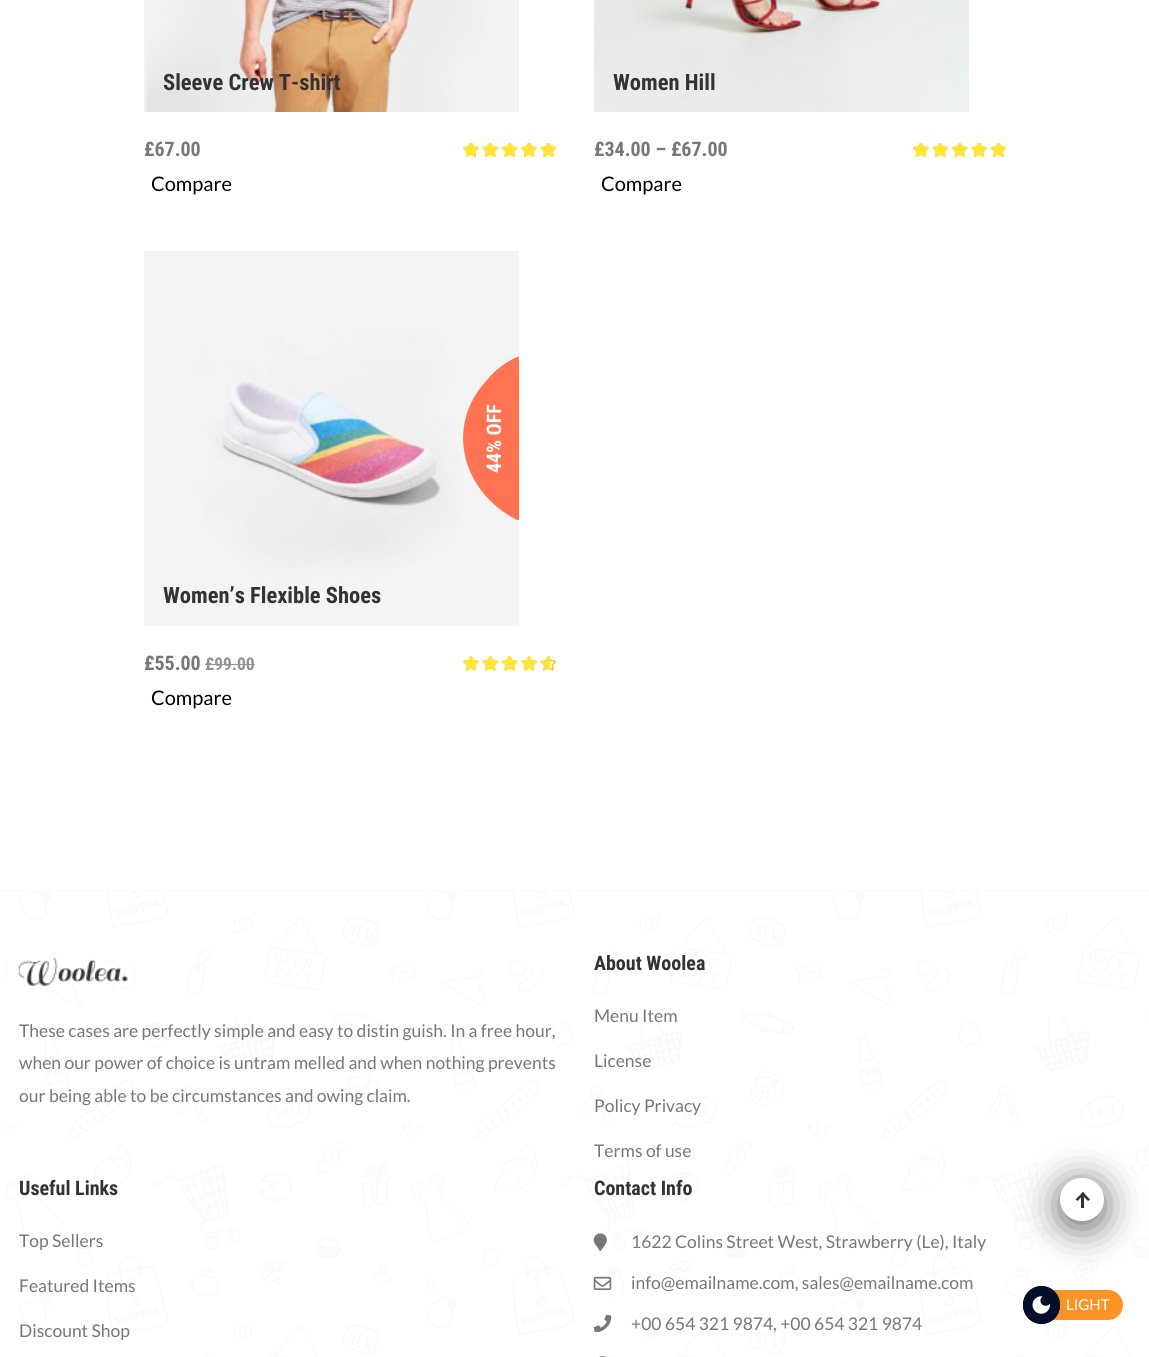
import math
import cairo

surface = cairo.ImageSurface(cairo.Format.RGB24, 1149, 1357)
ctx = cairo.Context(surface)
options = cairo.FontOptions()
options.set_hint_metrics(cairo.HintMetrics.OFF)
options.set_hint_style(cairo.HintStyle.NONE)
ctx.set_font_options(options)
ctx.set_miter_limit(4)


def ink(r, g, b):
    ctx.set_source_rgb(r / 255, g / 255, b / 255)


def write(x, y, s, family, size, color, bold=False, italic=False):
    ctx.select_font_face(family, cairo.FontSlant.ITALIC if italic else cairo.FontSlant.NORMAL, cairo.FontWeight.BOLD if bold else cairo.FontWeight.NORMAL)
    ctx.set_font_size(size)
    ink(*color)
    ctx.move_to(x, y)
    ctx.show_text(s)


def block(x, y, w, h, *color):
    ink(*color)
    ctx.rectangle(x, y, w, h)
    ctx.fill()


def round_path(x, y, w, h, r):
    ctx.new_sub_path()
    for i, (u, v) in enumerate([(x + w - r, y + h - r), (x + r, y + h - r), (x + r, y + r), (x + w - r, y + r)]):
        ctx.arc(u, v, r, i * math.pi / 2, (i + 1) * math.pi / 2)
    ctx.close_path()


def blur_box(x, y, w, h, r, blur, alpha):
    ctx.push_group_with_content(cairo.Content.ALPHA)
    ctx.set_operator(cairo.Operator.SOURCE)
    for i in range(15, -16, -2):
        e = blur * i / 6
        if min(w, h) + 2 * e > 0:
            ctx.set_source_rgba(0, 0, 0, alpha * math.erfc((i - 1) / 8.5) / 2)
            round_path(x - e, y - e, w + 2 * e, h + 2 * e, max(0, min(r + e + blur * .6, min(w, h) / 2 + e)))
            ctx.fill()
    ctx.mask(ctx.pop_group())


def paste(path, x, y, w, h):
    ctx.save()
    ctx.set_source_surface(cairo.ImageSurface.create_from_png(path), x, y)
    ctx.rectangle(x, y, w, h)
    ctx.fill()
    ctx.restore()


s1 = dict(family="Roboto Condensed", size=22.5, color=(51, 51, 51), bold=True)
s2 = dict(family="Roboto Condensed", size=20, color=(119, 119, 119), bold=True)
s3 = dict(family="Lato", size=20, color=(0, 0, 0))
s4 = dict(family="Roboto Condensed", size=20, color=(255, 255, 255), bold=True)
s5 = dict(family="Roboto Condensed", size=17.5, color=(146, 146, 146), bold=True)
s6 = dict(family="Lato", size=17.5, color=(119, 119, 119))
s7 = dict(family="Roboto Condensed", size=20, color=(51, 51, 51), bold=True)
s8 = dict(family="Lato", size=15, color=(255, 255, 255))

ink(255, 255, 255)
ctx.paint()
paste("pic1.png", 144, 0, 375, 112)
write(163, 90, "Sleeve Crew T-shirt", **s1)
write(144, 156, "£67.00", **s2)
paste("pic2.png", 463, 143, 93, 14)
paste("pic3.png", 463, 143, 93, 14)
write(151, 191, "Compare", **s3)
paste("pic4.png", 594, 0, 375, 112)
write(613, 90, "Women Hill", **s1)
write(594, 156, "£34.00 – £67.00", **s2)
paste("pic2.png", 913, 143, 93, 14)
paste("pic3.png", 913, 143, 93, 14)
write(601, 191, "Compare", **s3)
paste("pic5.png", 144, 251, 375, 375)
ink(255, 115, 83)
ctx.new_path()
ctx.move_to(517, 520)
ctx.curve_to(462, 492, 444, 426, 487, 380)
ctx.curve_to(495, 370, 506, 362, 517, 357)
ctx.line_to(519, 357)
ctx.line_to(519, 520)
ctx.close_path()
ctx.fill()
ctx.save()
ctx.translate(501, 473)
ctx.rotate(-90 * math.pi / 180)
write(0, 0, "44% OFF", **s4)
ctx.restore()
write(163, 603, "Women’s Flexible Shoes", **s1)
write(144, 670, "£55.00", **s2)
write(205, 670, "£99.00", **s5)
block(205, 664, 50, 1, 146, 146, 146)
paste("pic6.png", 463, 656, 93, 15)
paste("pic7.png", 463, 656, 87, 15)
write(151, 705, "Compare", **s3)
paste("pic8.png", 4, 891, 1145, 466)
block(0, 890, 1149, 1, 249, 249, 249)
paste("pic9.png", 18, 957, 110, 29)
write(19, 1037, "These cases are perfectly simple and easy to distin guish. In a free hour,", **s6)
write(19, 1069, "when our power of choice is untram melled and when nothing prevents", **s6)
write(19, 1102, "our being able to be circumstances and owing claim.", **s6)
write(594, 970, "About Woolea", **s7)
write(594, 1022, "Menu Item", **s6)
write(594, 1067, "License", **s6)
write(594, 1112, "Policy Privacy", **s6)
write(594, 1157, "Terms of use", **s6)
write(19, 1195, "Useful Links", **s7)
write(19, 1247, "Top Sellers", **s6)
write(19, 1292, "Featured Items", **s6)
write(19, 1337, "Discount Shop", **s6)
write(594, 1195, "Contact Info", **s7)
paste("pic10.png", 593, 1233, 14, 18)
write(631, 1248, "1622 Colins Street West, Strawberry (Le), Italy", **s6)
paste("pic11.png", 593, 1276, 19, 14)
write(631, 1289, "info@emailname.com, sales@emailname.com", **s6)
paste("pic12.png", 593, 1314, 19, 19)
write(631, 1330, "+00 654 321 9874, +00 654 321 9874", **s6)
paste("pic13.png", 599, 1356, 7, 1)
ink(0, 0, 0)
blur_box(1060, 1184, 44, 44, 22, 19, 0.6)
ink(255, 255, 255)
round_path(1060, 1178, 44, 43, 21.5)
ctx.fill()
ink(51, 51, 51)
ctx.new_path()
ctx.move_to(1084.5, 1194)
ctx.line_to(1077.5, 1201)
ctx.line_to(1075.5, 1199.5)
ctx.line_to(1083, 1192)
ctx.close_path()
ctx.fill()
ctx.new_path()
ctx.move_to(1090, 1199.5)
ctx.line_to(1088, 1201)
ctx.line_to(1081, 1194)
ctx.line_to(1083, 1192)
ctx.close_path()
ctx.fill()
block(1081, 1195, 3, 13, 51, 51, 51)
ink(251, 148, 38)
round_path(1023, 1290, 100, 30, 15)
ctx.fill()
ink(4, 14, 41)
round_path(1023, 1286, 37, 38, 18.5)
ctx.fill()
paste("pic14.png", 1023, 1286, 37, 38)
write(1066, 1310, "LIGHT", **s8)
surface.write_to_png("screenshot.png")
